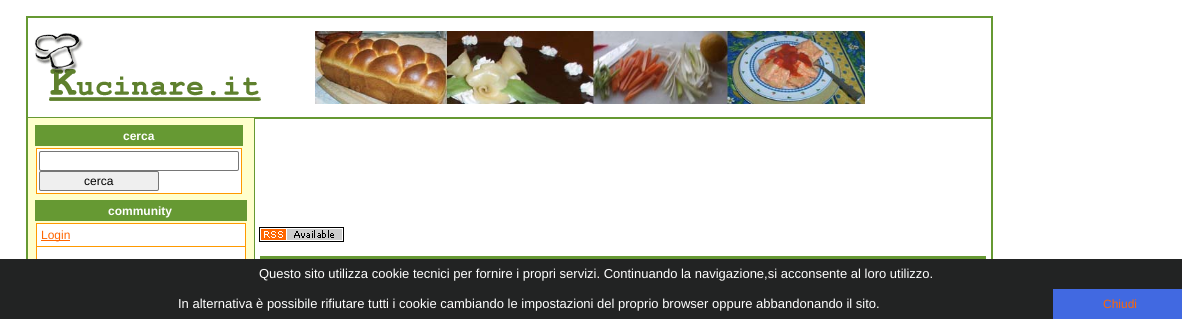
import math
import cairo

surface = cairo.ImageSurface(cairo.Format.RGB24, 1182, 319)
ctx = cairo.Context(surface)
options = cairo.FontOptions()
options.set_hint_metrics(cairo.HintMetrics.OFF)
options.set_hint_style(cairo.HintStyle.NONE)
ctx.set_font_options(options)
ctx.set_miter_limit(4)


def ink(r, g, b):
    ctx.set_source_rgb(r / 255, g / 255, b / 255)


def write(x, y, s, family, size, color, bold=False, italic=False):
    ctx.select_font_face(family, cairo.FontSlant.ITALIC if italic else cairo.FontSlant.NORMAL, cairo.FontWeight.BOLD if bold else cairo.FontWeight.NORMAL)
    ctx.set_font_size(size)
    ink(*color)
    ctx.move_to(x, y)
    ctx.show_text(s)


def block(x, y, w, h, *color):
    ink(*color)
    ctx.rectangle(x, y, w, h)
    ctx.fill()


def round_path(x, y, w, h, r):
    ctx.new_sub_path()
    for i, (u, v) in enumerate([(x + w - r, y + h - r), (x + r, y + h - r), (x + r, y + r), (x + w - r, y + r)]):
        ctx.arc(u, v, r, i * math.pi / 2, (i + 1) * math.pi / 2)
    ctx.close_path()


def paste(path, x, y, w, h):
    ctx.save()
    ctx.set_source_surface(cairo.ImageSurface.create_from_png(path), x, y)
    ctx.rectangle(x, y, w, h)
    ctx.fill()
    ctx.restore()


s1 = dict(family="Liberation Sans", size=12, color=(255, 255, 255), bold=True)
s2 = dict(family="Liberation Sans", size=12, color=(0, 0, 0))
s3 = dict(family="Liberation Sans", size=12, color=(255, 102, 0))
s4 = dict(family="Liberation Sans", size=13, color=(255, 255, 255))

ink(255, 255, 255)
ctx.paint()
block(26, 16, 967, 243, 102, 153, 51)
block(28, 18, 963, 99, 255, 255, 255)
paste("pic1.png", 34, 33, 227, 68)
paste("pic2.png", 315, 31, 550, 73)
block(28, 118, 226, 141, 255, 255, 204)
block(35, 125, 208, 21, 102, 153, 51)
write(123, 140, "cerca", **s1)
block(36, 148, 206, 46, 255, 153, 0)
block(37, 149, 204, 44, 255, 255, 255)
round_path(39.5, 151.5, 199, 19, 1.5)
ink(118, 118, 118)
ctx.set_line_width(1)
ctx.stroke()
ink(239, 239, 239)
round_path(39.5, 171.5, 119, 19, 1.5)
ctx.fill_preserve()
ink(118, 118, 118)
ctx.stroke()
write(84, 185, "cerca", **s2)
block(35, 200, 212, 21, 102, 153, 51)
write(108, 215, "community", **s1)
block(36, 223, 210, 36, 255, 153, 0)
block(37, 224, 208, 22, 255, 255, 255)
block(41, 240, 29, 1, 255, 102, 0)
write(41, 239, "Login", **s3)
block(37, 247, 208, 12, 255, 255, 255)
block(255, 119, 736, 140, 255, 255, 255)
paste("pic3.png", 259, 227, 85, 15)
block(260, 256, 726, 3, 102, 153, 51)
block(0, 259, 1182, 60, 34, 35, 35)
write(259, 278, "Questo sito utilizza cookie tecnici per fornire i propri servizi. Continuando la navigazione,si acconsente al loro utilizzo.", **s4)
write(178, 308, "In alternativa è possibile rifiutare tutti i cookie cambiando le impostazioni del proprio browser oppure abbandonando il sito.", **s4)
block(1053, 289, 129, 30, 65, 105, 225)
write(1103, 308, "Chiudi", **s3)
surface.write_to_png("screenshot.png")
